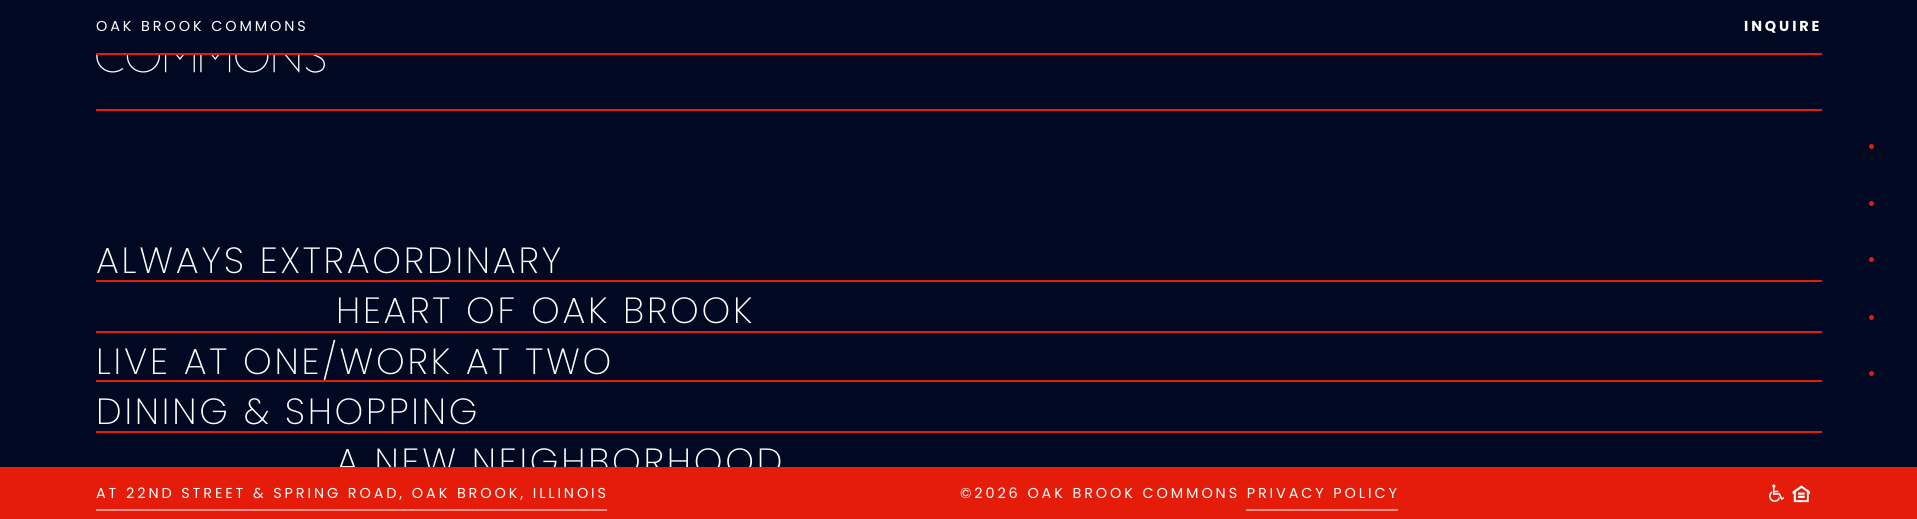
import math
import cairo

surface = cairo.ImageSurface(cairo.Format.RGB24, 1917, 519)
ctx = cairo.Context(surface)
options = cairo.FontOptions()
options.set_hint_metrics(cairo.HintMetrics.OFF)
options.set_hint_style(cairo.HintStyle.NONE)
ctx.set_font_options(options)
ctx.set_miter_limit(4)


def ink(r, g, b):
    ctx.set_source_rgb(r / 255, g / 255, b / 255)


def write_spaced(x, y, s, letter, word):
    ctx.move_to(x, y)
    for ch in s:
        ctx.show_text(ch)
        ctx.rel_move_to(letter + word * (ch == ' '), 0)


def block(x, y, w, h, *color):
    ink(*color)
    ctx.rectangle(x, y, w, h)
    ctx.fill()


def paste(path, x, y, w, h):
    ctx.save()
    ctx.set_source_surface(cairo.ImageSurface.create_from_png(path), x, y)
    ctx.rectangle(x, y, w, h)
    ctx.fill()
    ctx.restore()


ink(0, 9, 33)
ctx.paint()
ctx.select_font_face("Poppins")
ctx.set_font_size(14.4)
ink(255, 255, 255)
write_spaced(96, 31, "OAK BROOK COMMONS", 2.9, 0)
ctx.select_font_face("Poppins", cairo.FontSlant.NORMAL, cairo.FontWeight.BOLD)
write_spaced(1744, 31, "INQUIRE", 2.9, 0)
block(96, 53, 1726, 2, 228, 28, 9)
block(96, 109, 1726, 2, 228, 28, 9)
paste("pic1.png", 96, 55, 229, 18)
block(96, 280, 1726, 2, 228, 28, 9)
ctx.select_font_face("Poppins ExtraLight")
ctx.set_font_size(36.4)
ink(255, 255, 255)
write_spaced(96, 273, "ALWAYS EXTRAORDINARY", 2.75, 0)
ink(228, 28, 9)
ctx.new_path()
ctx.arc(1871.5, 146.5, 1.5, 0, 2 * math.pi)
ctx.fill_preserve()
ctx.stroke()
ctx.arc(1871.5, 203.5, 1.5, 0, 2 * math.pi)
ctx.fill_preserve()
ctx.stroke()
ctx.arc(1871.5, 259.5, 1.5, 0, 2 * math.pi)
ctx.fill_preserve()
ctx.stroke()
ctx.arc(1871.5, 317.5, 1.5, 0, 2 * math.pi)
ctx.fill_preserve()
ctx.stroke()
ctx.arc(1871.5, 373.5, 1.5, 0, 2 * math.pi)
ctx.fill_preserve()
ctx.stroke()
block(96, 331, 1726, 2, 228, 28, 9)
ink(255, 255, 255)
write_spaced(336, 323, "HEART OF OAK BROOK", 2.75, 0)
block(96, 380, 1726, 2, 228, 28, 9)
ink(255, 255, 255)
write_spaced(96, 374, "LIVE AT ONE/WORK AT TWO", 2.75, 0)
write_spaced(96, 424, "DINING & SHOPPING", 2.75, 0)
block(96, 431, 1726, 2, 228, 28, 9)
ink(255, 255, 255)
write_spaced(336, 474, "A NEW NEIGHBORHOOD", 2.75, 0)
block(0, 467, 1917, 52, 228, 28, 9)
ctx.select_font_face("Poppins")
ctx.set_font_size(14.4)
ink(255, 255, 255)
write_spaced(96, 498, "AT 22ND STREET & SPRING ROAD, OAK BROOK, ILLINOIS", 2.9, 0)
block(96, 509, 511, 2, 242, 142, 132)
ink(255, 255, 255)
write_spaced(960, 498, "©2026 OAK BROOK COMMONS PRIVACY POLICY", 2.9, 0)
block(1246, 509, 152, 2, 242, 142, 132)
paste("pic2.png", 1769, 484, 41, 19)
surface.write_to_png("screenshot.png")
